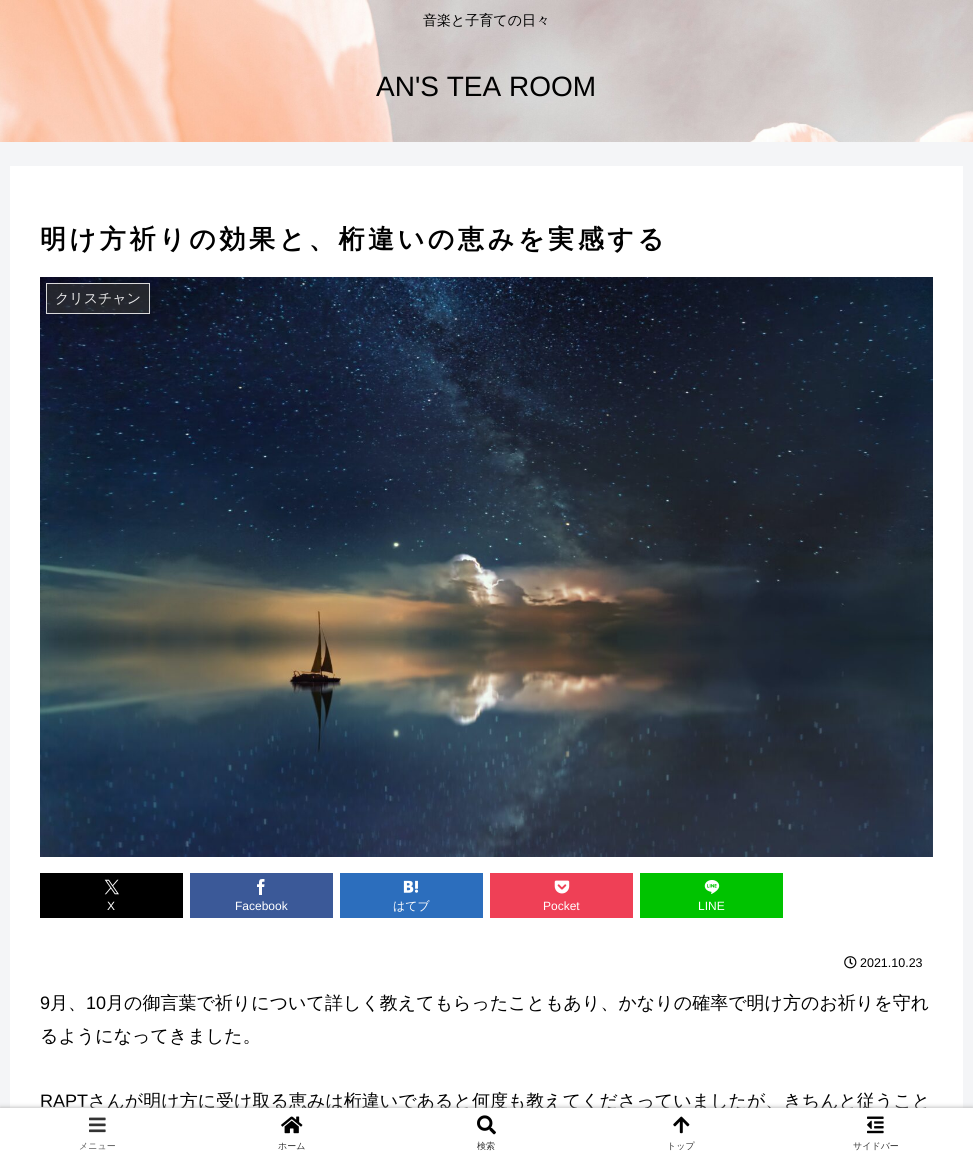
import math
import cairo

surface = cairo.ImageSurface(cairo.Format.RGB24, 973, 1158)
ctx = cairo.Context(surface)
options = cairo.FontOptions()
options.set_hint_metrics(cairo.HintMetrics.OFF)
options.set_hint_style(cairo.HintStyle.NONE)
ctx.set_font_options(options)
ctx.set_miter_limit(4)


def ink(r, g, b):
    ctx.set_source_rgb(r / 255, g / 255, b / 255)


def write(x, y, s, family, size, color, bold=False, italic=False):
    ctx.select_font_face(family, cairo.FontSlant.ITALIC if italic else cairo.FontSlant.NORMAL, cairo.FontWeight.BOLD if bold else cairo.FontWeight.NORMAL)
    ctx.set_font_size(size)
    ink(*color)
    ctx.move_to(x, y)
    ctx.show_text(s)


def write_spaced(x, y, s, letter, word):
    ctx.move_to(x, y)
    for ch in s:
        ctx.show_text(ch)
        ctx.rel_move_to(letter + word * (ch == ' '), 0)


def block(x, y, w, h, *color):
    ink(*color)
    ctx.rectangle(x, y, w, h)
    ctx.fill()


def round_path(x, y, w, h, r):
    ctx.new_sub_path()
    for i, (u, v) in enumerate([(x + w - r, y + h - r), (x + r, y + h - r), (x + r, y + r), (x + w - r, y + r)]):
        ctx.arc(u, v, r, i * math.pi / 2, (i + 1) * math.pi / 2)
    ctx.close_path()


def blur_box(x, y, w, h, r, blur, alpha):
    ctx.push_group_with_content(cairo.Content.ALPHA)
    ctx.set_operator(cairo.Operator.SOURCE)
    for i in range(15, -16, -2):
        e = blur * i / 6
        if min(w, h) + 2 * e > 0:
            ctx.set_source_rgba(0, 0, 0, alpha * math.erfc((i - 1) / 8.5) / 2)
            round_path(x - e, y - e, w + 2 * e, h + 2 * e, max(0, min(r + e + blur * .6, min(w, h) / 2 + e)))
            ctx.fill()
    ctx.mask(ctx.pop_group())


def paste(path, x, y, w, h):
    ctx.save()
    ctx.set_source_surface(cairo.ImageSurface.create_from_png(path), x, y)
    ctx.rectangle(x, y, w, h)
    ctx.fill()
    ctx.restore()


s1 = dict(family="WenQuanYi Zen Hei Medium", size=14, color=(0, 0, 0))
s2 = dict(family="Liberation Sans", size=28, color=(0, 0, 0))
s3 = dict(family="WenQuanYi Zen Hei Medium", size=14, color=(233, 233, 234))
s4 = dict(family="Liberation Sans", size=12, color=(255, 255, 255))
s5 = dict(family="WenQuanYi Zen Hei Medium", size=12, color=(255, 255, 255))
s6 = dict(family="Liberation Sans", size=12.5, color=(0, 0, 0))
s7 = dict(family="Liberation Sans", size=18, color=(0, 0, 0))
s8 = dict(family="WenQuanYi Zen Hei Medium", size=18, color=(0, 0, 0))
s9 = dict(family="WenQuanYi Zen Hei Medium", size=9, color=(92, 92, 92))
s10 = dict(family="WenQuanYi Zen Hei Medium", size=9, color=(51, 51, 51))

ink(244, 245, 247)
ctx.paint()
paste("pic1.png", 0, 0, 973, 142)
write(423, 25, "音楽と子育ての日々", **s1)
write(376, 96, "AN'S TEA ROOM", **s2)
block(10, 166, 953, 942, 255, 255, 255)
ctx.select_font_face("WenQuanYi Zen Hei", cairo.FontSlant.NORMAL, cairo.FontWeight.BOLD)
ctx.set_font_size(26)
ink(0, 0, 0)
write_spaced(40, 248, "明け方祈りの効果と、桁違いの恵みを実感する", 3.6, 0)
paste("pic2.png", 40, 277, 893, 580)
ctx.set_source_rgba(0.2, 0.2, 0.2, 0.63)
ctx.rectangle(46, 283, 104, 31)
ctx.fill()
ctx.rectangle(46.5, 283.5, 103, 30)
ctx.set_source_rgba(0.933, 0.933, 0.933, 0.9)
ctx.set_line_width(1)
ctx.stroke()
write(55, 303, "クリスチャン", **s3)
block(40, 873, 143, 45, 0, 0, 0)
paste("pic3.png", 104, 879, 15, 16)
write(107, 910, "X", **s4)
block(190, 873, 143, 45, 59, 89, 152)
paste("pic4.png", 257, 879, 8, 16)
write(235, 910, "Facebook", **s4)
block(340, 873, 143, 45, 44, 110, 189)
paste("pic5.png", 403, 880, 16, 13)
write(393, 910, "はてブ", **s5)
block(490, 873, 143, 45, 239, 64, 86)
paste("pic6.png", 554, 880, 16, 14)
write(543, 910, "Pocket", **s4)
block(640, 873, 143, 45, 0, 195, 0)
paste("pic7.png", 704, 880, 16, 14)
write(698, 910, "LINE", **s4)
paste("pic8.png", 844, 956, 13, 13)
write(860, 967, "2021.10.23", **s6)
write(40, 1009, "9", **s7)
write(50, 1009, "月、", **s8)
write(86, 1009, "10", **s7)
write(106, 1009, "月の御言葉で祈りについて詳しく教えてもらったこともあり、かなりの確率で明け方のお祈りを守れ", **s8)
write(40, 1042, "るようになってきました。", **s8)
write(40, 1107, "RAPT", **s7)
write(88, 1107, "さんが明け方に受け取る恵みは桁違いであると何度も教えてくださっていましたが、きちんと従うこと", **s8)
ink(169, 169, 169)
blur_box(0, 1108, 973, 50, 0, 2.5, 1)
block(0, 1108, 973, 50, 255, 255, 255)
paste("pic9.png", 89, 1117, 17, 16)
write(79, 1149, "メニュー", **s9)
paste("pic10.png", 281, 1116, 22, 18)
write(278, 1149, "ホーム", **s10)
paste("pic11.png", 477, 1115, 19, 20)
write(477, 1149, "検索", **s10)
paste("pic12.png", 673, 1116, 17, 18)
write(667, 1149, "トップ", **s10)
paste("pic13.png", 867, 1116, 17, 18)
write(853, 1149, "サイドバー", **s10)
surface.write_to_png("screenshot.png")
